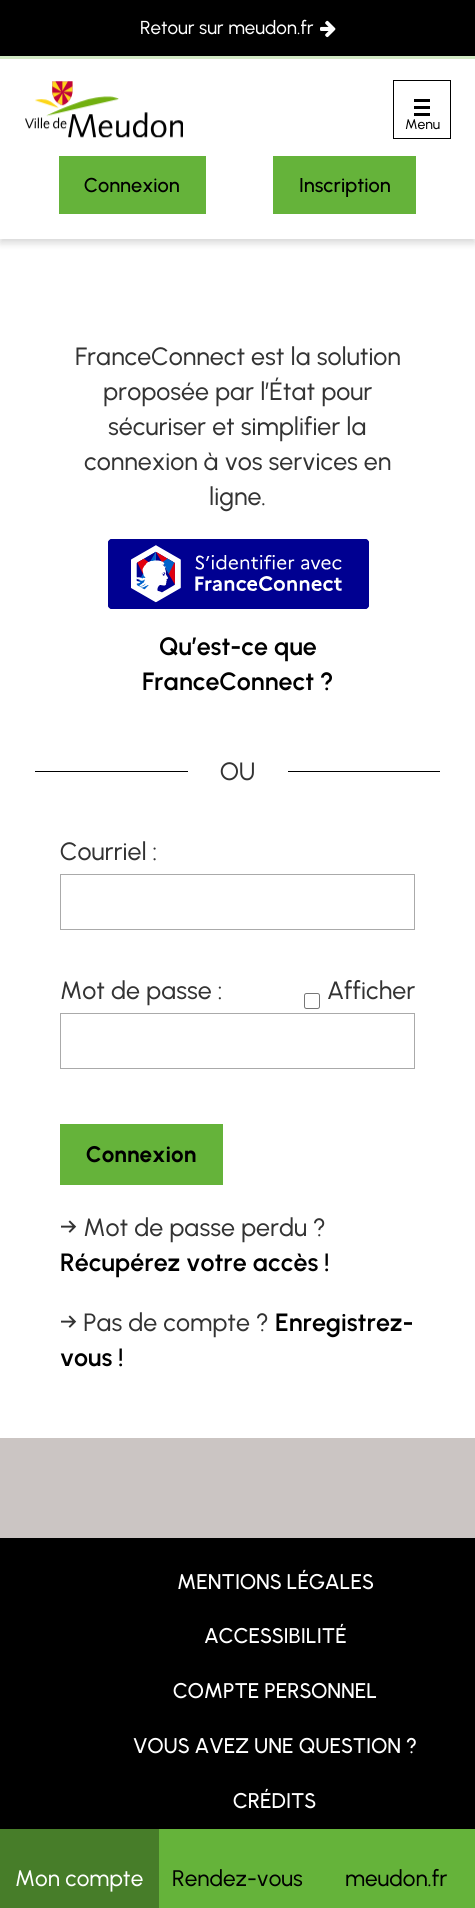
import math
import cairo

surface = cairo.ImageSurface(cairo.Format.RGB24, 475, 1908)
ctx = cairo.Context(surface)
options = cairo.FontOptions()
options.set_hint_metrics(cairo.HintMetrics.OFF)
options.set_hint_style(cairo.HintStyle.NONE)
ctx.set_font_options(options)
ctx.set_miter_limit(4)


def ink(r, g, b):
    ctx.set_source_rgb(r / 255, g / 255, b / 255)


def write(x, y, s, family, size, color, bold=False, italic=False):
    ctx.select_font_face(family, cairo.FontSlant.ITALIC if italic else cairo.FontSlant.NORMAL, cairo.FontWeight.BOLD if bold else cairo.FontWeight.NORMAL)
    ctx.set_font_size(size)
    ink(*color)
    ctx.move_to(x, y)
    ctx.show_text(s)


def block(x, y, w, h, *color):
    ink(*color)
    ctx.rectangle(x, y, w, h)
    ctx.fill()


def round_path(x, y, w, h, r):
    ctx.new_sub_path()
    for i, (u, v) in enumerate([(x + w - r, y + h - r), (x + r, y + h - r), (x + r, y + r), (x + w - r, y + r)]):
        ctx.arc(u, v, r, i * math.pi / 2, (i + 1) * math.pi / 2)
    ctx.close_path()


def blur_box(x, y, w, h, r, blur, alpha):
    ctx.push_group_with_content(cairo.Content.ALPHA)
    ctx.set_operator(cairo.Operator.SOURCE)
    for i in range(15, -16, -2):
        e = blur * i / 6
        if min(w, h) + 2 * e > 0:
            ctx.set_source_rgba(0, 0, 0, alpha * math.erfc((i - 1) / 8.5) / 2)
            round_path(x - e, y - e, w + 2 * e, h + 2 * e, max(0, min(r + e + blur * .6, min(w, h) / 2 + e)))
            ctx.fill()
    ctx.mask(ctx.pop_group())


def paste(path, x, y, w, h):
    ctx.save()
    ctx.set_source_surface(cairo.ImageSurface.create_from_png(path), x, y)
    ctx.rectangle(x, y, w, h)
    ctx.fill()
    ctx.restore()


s1 = dict(family="Urbanist", size=18.75, color=(255, 255, 255))
s2 = dict(family="Urbanist", size=14, color=(0, 0, 0))
s3 = dict(family="Urbanist Medium", size=20, color=(0, 0, 0))
s4 = dict(family="Urbanist", size=25, color=(51, 51, 51))
s5 = dict(family="Urbanist SemiBold", size=25, color=(0, 0, 0))
s6 = dict(family="Urbanist", size=22.5, color=(0, 0, 0), bold=True)
s7 = dict(family="Urbanist Medium", size=21.25, color=(255, 255, 255))
s8 = dict(family="Urbanist", size=22.5, color=(255, 255, 255))
s9 = dict(family="Urbanist", size=22.5, color=(0, 0, 0))

ink(255, 255, 255)
ctx.paint()
ink(0, 0, 0)
blur_box(0, 4, 475, 239, 0, 4, 0.16)
block(0, 59, 475, 180, 255, 255, 255)
block(0, 0, 475, 56, 0, 0, 0)
write(140, 34, "Retour sur meudon.fr", **s1)
paste("pic1.png", 320, 20, 16, 18)
paste("pic2.png", 25, 81, 158, 57)
block(0, 56, 475, 3, 209, 232, 196)
ctx.rectangle(393.5, 80.5, 57, 58)
ink(0, 0, 0)
ctx.set_line_width(1)
ctx.stroke()
block(414, 99, 16, 3, 0, 0, 0)
block(414, 106, 16, 3, 0, 0, 0)
block(414, 113, 16, 3, 0, 0, 0)
write(405, 129, "Menu", **s2)
block(59, 156, 147, 58, 101, 179, 58)
write(84, 192, "Connexion", **s3)
block(273, 156, 143, 58, 101, 179, 58)
write(299, 192, "Inscription", **s3)
write(75, 365, "FranceConnect est la solution", **s4)
write(103, 400, "proposée par l’État pour", **s4)
write(108, 435, "sécuriser et simplifier la", **s4)
write(84, 470, "connexion à vos services en", **s4)
write(209, 505, "ligne.", **s4)
ink(0, 0, 145)
round_path(108, 539, 261, 70, 4)
ctx.fill()
paste("pic3.png", 131, 545, 211, 58)
round_path(108.5, 539.5, 260, 69, 3.5)
ctx.stroke()
write(159, 655, "Qu’est-ce que", **s5)
write(142, 690, "FranceConnect ?", **s5)
block(35, 771, 153, 1, 0, 0, 0)
block(288, 771, 152, 1, 0, 0, 0)
write(220, 780, "OU", **s4)
write(60, 860, "Courriel :", **s4)
ctx.rectangle(60.5, 874.5, 354, 55)
ink(170, 170, 170)
ctx.stroke()
write(60, 999, "Mot de passe :", **s4)
round_path(304.5, 993.5, 15, 15, 2)
ink(118, 118, 118)
ctx.stroke()
write(327, 999, "Afficher", **s4)
ctx.rectangle(60.5, 1013.5, 354, 55)
ink(170, 170, 170)
ctx.stroke()
block(60, 1124, 163, 61, 101, 179, 58)
write(86, 1162, "Connexion", **s6)
write(60, 1236, "→ Mot de passe perdu ?", **s4)
write(60, 1271, "Récupérez votre accès !", **s5)
write(60, 1331, "→ Pas de compte ?", **s4)
write(275, 1331, "Enregistrez-", **s5)
write(60, 1366, "vous !", **s5)
block(0, 1438, 475, 100, 203, 197, 195)
block(0, 1538, 475, 291, 0, 0, 0)
write(177, 1589, "MENTIONS LÉGALES", **s7)
write(204, 1643, "ACCESSIBILITÉ", **s7)
write(173, 1698, "COMPTE PERSONNEL", **s7)
write(133, 1753, "VOUS AVEZ UNE QUESTION ?", **s7)
write(233, 1808, "CRÉDITS", **s7)
block(159, 1829, 316, 79, 101, 179, 58)
block(0, 1829, 159, 79, 71, 125, 41)
write(15, 1886, "Mon compte", **s8)
write(172, 1886, "Rendez-vous", **s9)
write(345, 1886, "meudon.fr", **s9)
surface.write_to_png("screenshot.png")
